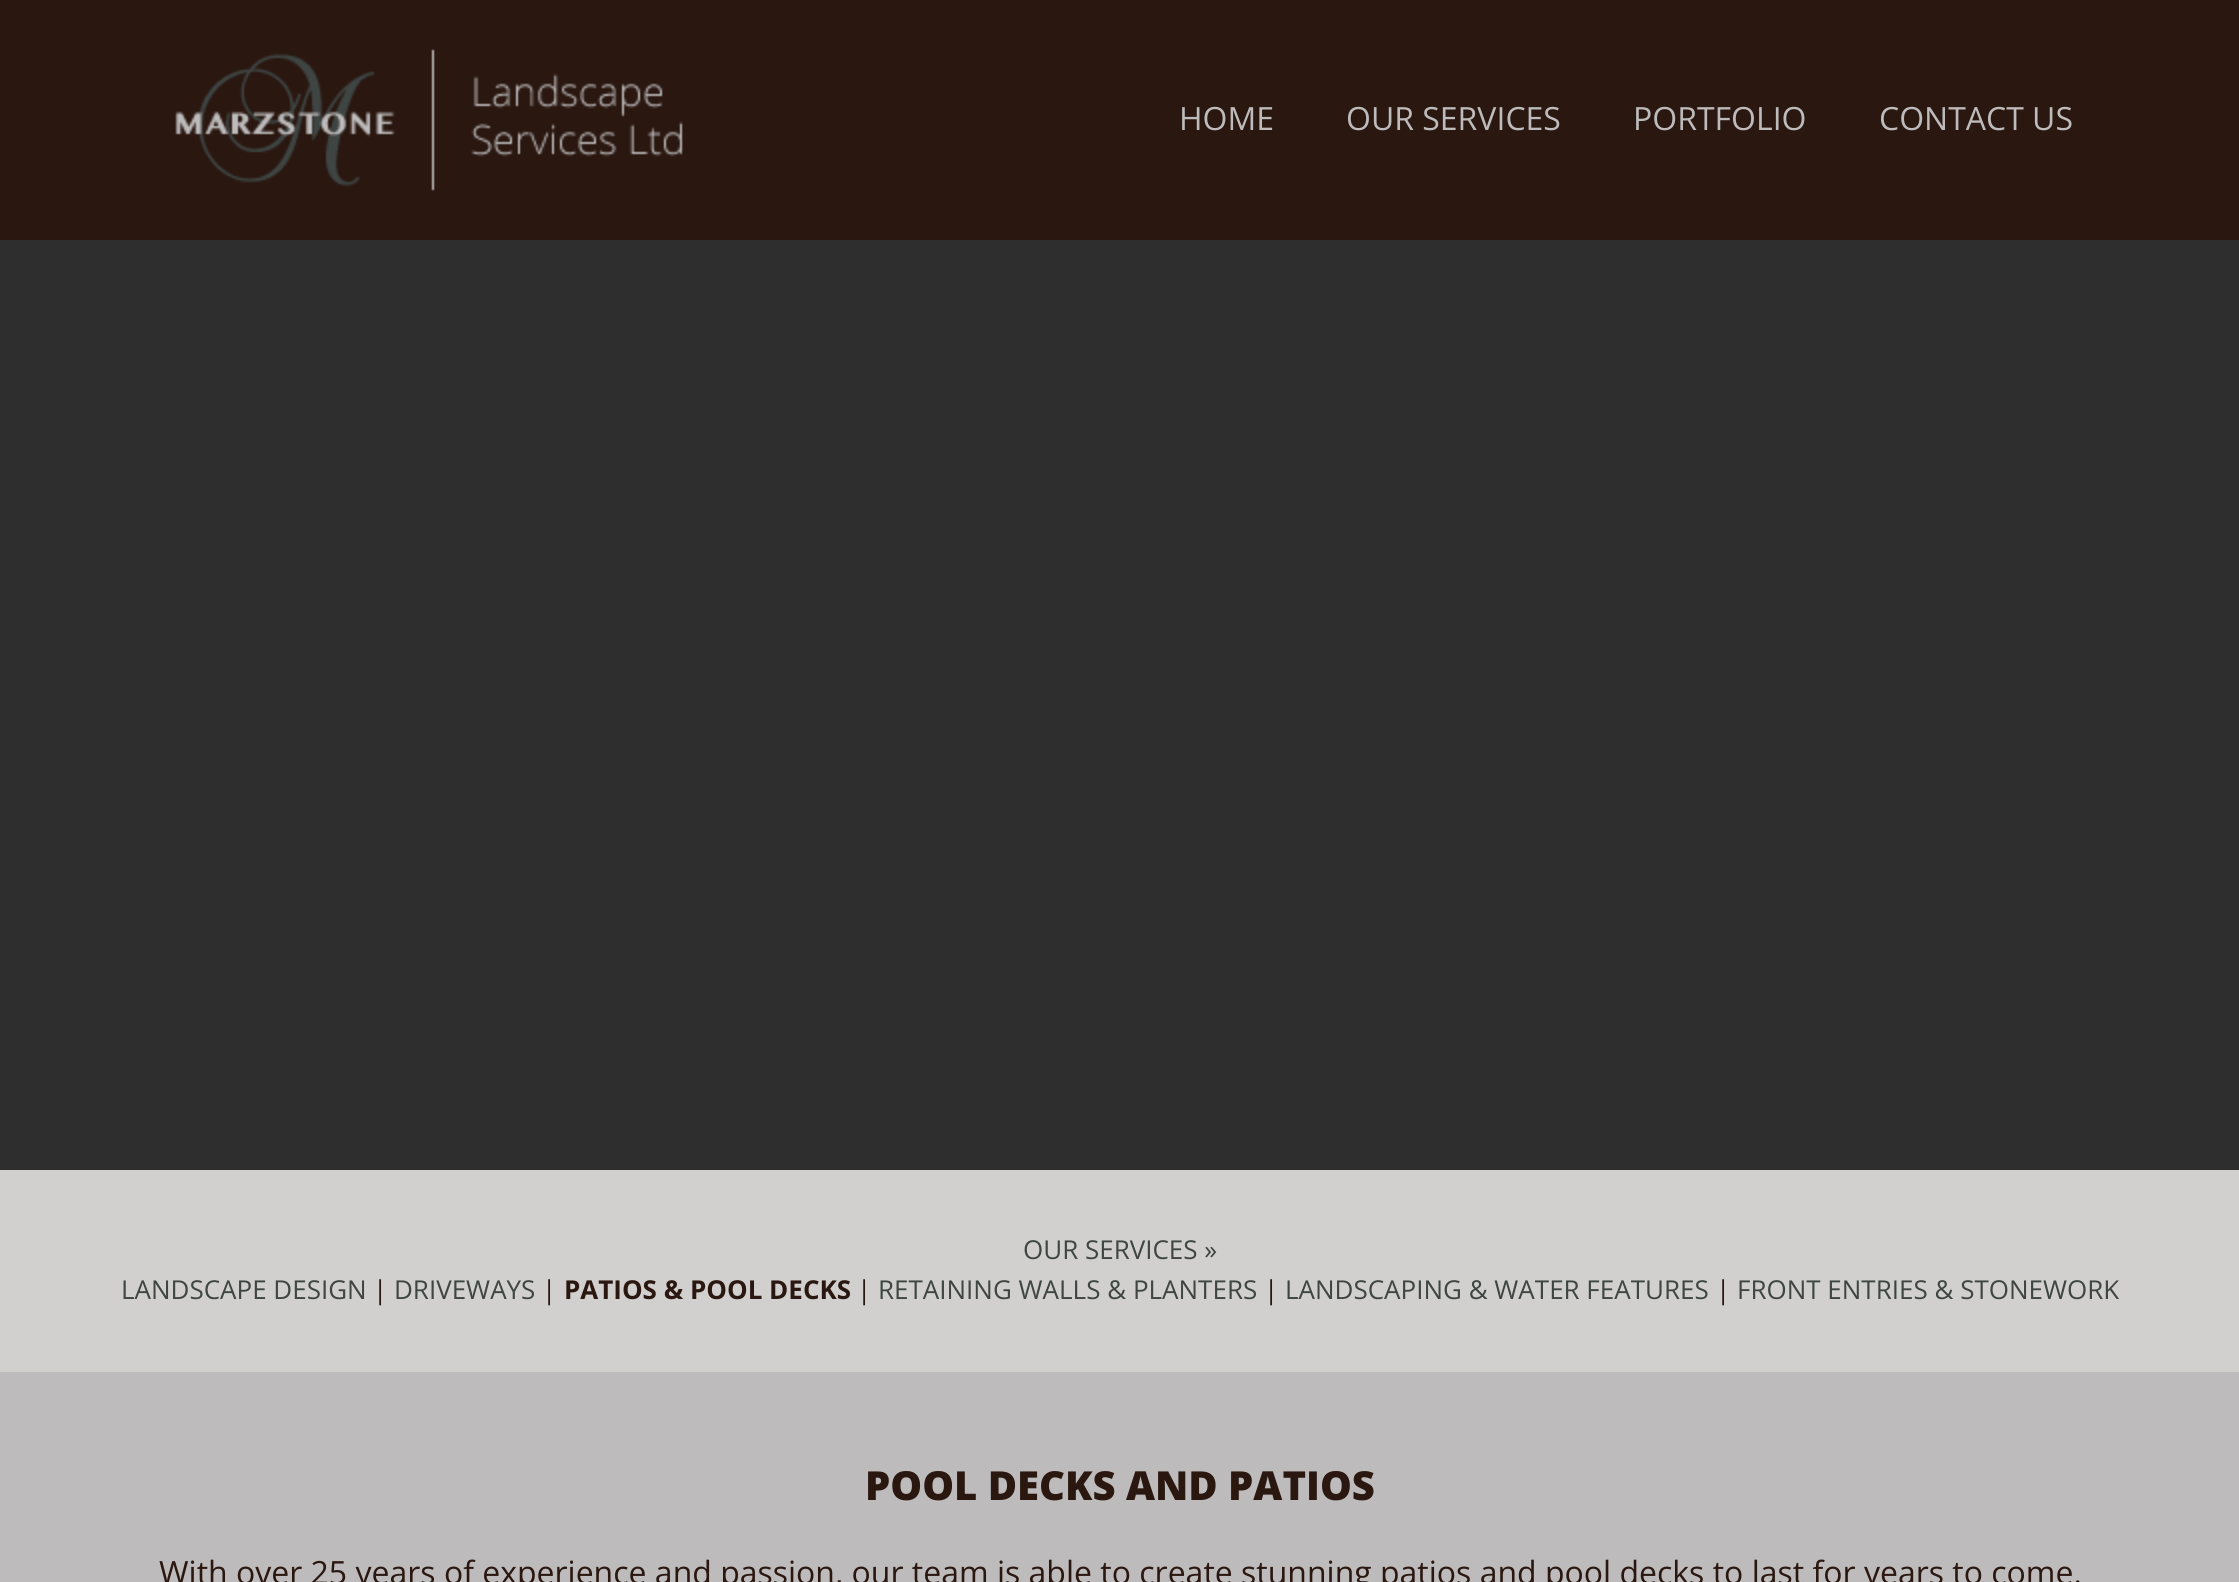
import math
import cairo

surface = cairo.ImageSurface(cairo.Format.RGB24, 2239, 1582)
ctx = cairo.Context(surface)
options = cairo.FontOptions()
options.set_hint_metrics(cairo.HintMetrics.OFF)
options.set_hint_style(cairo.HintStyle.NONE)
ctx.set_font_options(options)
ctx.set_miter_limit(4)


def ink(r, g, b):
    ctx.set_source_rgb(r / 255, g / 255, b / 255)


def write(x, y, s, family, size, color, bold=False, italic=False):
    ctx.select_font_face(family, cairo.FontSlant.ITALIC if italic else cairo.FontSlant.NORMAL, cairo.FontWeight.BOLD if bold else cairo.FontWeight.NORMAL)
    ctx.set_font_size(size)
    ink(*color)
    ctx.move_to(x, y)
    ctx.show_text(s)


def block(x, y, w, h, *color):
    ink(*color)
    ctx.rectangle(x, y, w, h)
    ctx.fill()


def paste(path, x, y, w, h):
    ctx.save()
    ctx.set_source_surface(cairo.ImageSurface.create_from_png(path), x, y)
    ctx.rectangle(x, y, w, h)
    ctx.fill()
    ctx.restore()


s1 = dict(family="Open Sans", size=32, color=(189, 187, 187))
s2 = dict(family="Open Sans", size=26, color=(62, 69, 67))
s3 = dict(family="Open Sans", size=26, color=(42, 23, 16))
s4 = dict(family="Open Sans", size=26, color=(42, 23, 16), bold=True)
s5 = dict(family="Open Sans ExtraBold", size=40, color=(42, 23, 16))
s6 = dict(family="Open Sans", size=32, color=(42, 23, 16))

ink(189, 187, 187)
ctx.paint()
block(0, 0, 2239, 240, 42, 23, 16)
paste("pic1.png", 175, 49, 508, 142)
write(1179, 130, "HOME", **s1)
write(1346, 130, "OUR SERVICES", **s1)
write(1633, 130, "PORTFOLIO", **s1)
write(1879, 130, "CONTACT US", **s1)
block(0, 240, 2239, 930, 47, 46, 46)
block(0, 1170, 2239, 202, 209, 208, 207)
write(1023, 1259, "OUR SERVICES »", **s2)
write(121, 1299, "LANDSCAPE DESIGN", **s2)
write(373, 1299, "|", **s3)
write(394, 1299, "DRIVEWAYS", **s2)
write(542, 1299, "|", **s3)
write(564, 1299, "PATIOS & POOL DECKS", **s4)
write(857, 1299, "|", **s3)
write(878, 1299, "RETAINING WALLS & PLANTERS", **s2)
write(1264, 1299, "|", **s3)
write(1285, 1299, "LANDSCAPING & WATER FEATURES", **s2)
write(1716, 1299, "|", **s3)
write(1737, 1299, "FRONT ENTRIES & STONEWORK", **s2)
write(865, 1500, "POOL DECKS AND PATIOS", **s5)
write(159, 1584, "With over 25 years of experience and passion, our team is able to create stunning patios and pool decks to last for years to come.", **s6)
surface.write_to_png("screenshot.png")
